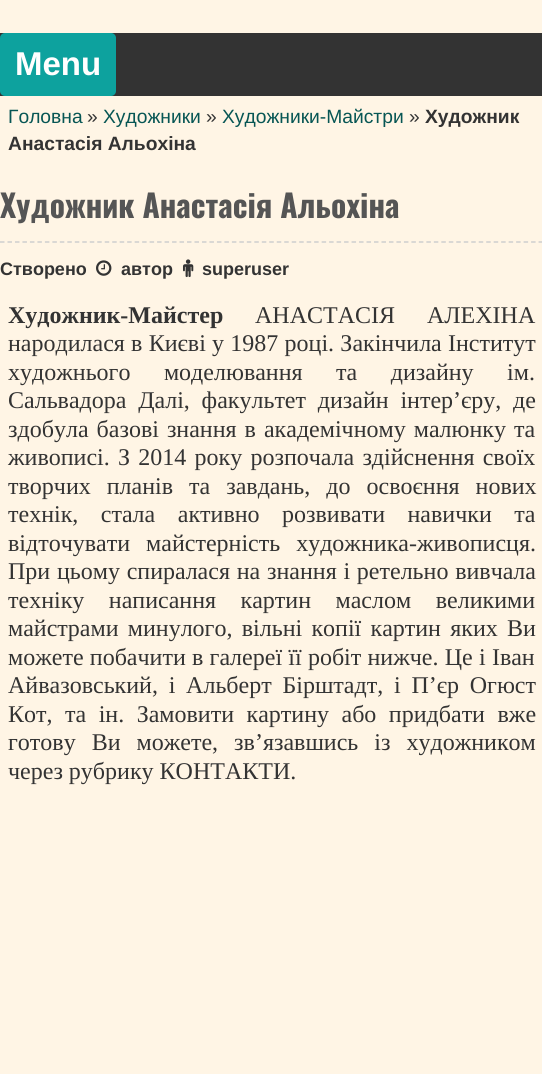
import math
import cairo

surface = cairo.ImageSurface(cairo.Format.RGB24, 542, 1074)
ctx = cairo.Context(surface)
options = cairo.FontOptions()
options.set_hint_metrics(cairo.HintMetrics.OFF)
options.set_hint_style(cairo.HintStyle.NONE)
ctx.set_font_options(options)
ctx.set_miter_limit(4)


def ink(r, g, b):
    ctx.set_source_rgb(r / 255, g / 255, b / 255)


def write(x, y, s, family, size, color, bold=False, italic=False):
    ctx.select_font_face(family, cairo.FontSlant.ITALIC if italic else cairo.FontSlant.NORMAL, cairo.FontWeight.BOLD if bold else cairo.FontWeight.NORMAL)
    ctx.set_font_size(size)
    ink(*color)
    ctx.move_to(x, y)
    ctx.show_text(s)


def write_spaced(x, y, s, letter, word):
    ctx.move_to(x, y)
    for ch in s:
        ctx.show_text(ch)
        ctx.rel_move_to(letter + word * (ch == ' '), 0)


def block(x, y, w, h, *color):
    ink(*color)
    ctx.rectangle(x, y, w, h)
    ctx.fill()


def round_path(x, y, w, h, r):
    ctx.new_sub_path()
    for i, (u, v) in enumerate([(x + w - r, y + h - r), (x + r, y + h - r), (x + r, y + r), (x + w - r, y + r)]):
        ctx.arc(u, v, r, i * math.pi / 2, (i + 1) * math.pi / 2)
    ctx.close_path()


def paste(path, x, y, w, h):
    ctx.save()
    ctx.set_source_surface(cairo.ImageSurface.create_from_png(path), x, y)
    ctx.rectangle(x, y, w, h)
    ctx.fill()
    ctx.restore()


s1 = dict(family="Liberation Sans", size=33, color=(255, 255, 255), bold=True)
s2 = dict(family="Liberation Sans", size=19.25, color=(7, 86, 84))
s3 = dict(family="Liberation Sans", size=19.25, color=(51, 51, 51))
s4 = dict(family="Liberation Sans", size=19.25, color=(51, 51, 51), bold=True)
s5 = dict(family="Oswald", size=31.5, color=(85, 85, 85), bold=True)
s6 = dict(family="Liberation Sans", size=18, color=(51, 51, 51), bold=True)
s7 = dict(family="Liberation Serif", size=24, color=(51, 51, 51), bold=True)
s8 = dict(family="Liberation Serif", size=24, color=(51, 51, 51))

ink(255, 245, 229)
ctx.paint()
block(0, 33, 542, 63, 51, 51, 51)
ink(13, 162, 158)
round_path(0, 33, 116, 63, 5)
ctx.fill()
write(15, 75, "Menu", **s1)
write(8, 123, "Головна", **s2)
write(87, 123, "»", **s3)
write(103, 123, "Художники", **s2)
write(206, 123, "»", **s3)
write(222, 123, "Художники-Майстри", **s2)
write(409, 123, "»", **s3)
write(425, 123, "Художник", **s4)
write(8, 150, "Анастасія Альохіна", **s4)
ctx.new_path()
ctx.move_to(0, 242)
ctx.line_to(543, 242)
ink(206, 206, 206)
ctx.set_line_width(1.5)
ctx.set_dash([4.5, 2.98])
ctx.stroke()
write(0, 218, "Художник Анастасія Альохіна", **s5)
write(0, 275, "Створено", **s6)
paste("pic1.png", 96, 260, 16, 16)
write(121, 275, "автор", **s6)
paste("pic2.png", 183, 259, 11, 19)
write(202, 275, "superuser", **s6)
write(8, 323, "Художник-Майстер", **s7)
ctx.select_font_face("Liberation Serif")
write_spaced(255, 323, "АНАСТАСІЯ АЛЕХІНА", 0, 26)
write_spaced(8, 351, "народилася в Києві у 1987 році. Закінчила Інститут", 0, 0.25)
write_spaced(8, 380, "художнього моделювання та дизайну ім.", 0, 27.5)
write_spaced(8, 408, "Сальвадора Далі, факультет дизайн інтер’єру, де", 0, 5.75)
write_spaced(8, 437, "здобула базові знання в академічному малюнку та", 0, 2)
write_spaced(8, 465, "живописі. З 2014 року розпочала здійснення своїх", 0, 2.25)
write_spaced(8, 494, "творчих планів та завдань, до освоєння нових", 0, 10)
write_spaced(8, 522, "технік, стала активно розвивати навички та", 0, 16.5)
write_spaced(8, 551, "відточувати майстерність художника-живописця.", 0, 10)
write_spaced(8, 579, "При цьому спиралася на знання і ретельно вивчала", 0, 0.75)
write_spaced(8, 608, "техніку написання картин маслом великими", 0, 18.5)
write_spaced(8, 636, "майстрами минулого, вільні копії картин яких Ви", 0, 3.25)
write_spaced(8, 665, "можете побачити в галереї її робіт нижче. Це і Іван", 0, 0.25)
write_spaced(8, 693, "Айвазовський, і Альберт Бірштадт, і П’єр Огюст", 0, 4.75)
write_spaced(8, 722, "Кот, та ін. Замовити картину або придбати вже", 0, 6.5)
write_spaced(8, 750, "готову Ви можете, зв’язавшись із художником", 0, 10)
write(8, 779, "через рубрику КОНТАКТИ.", **s8)
surface.write_to_png("screenshot.png")
